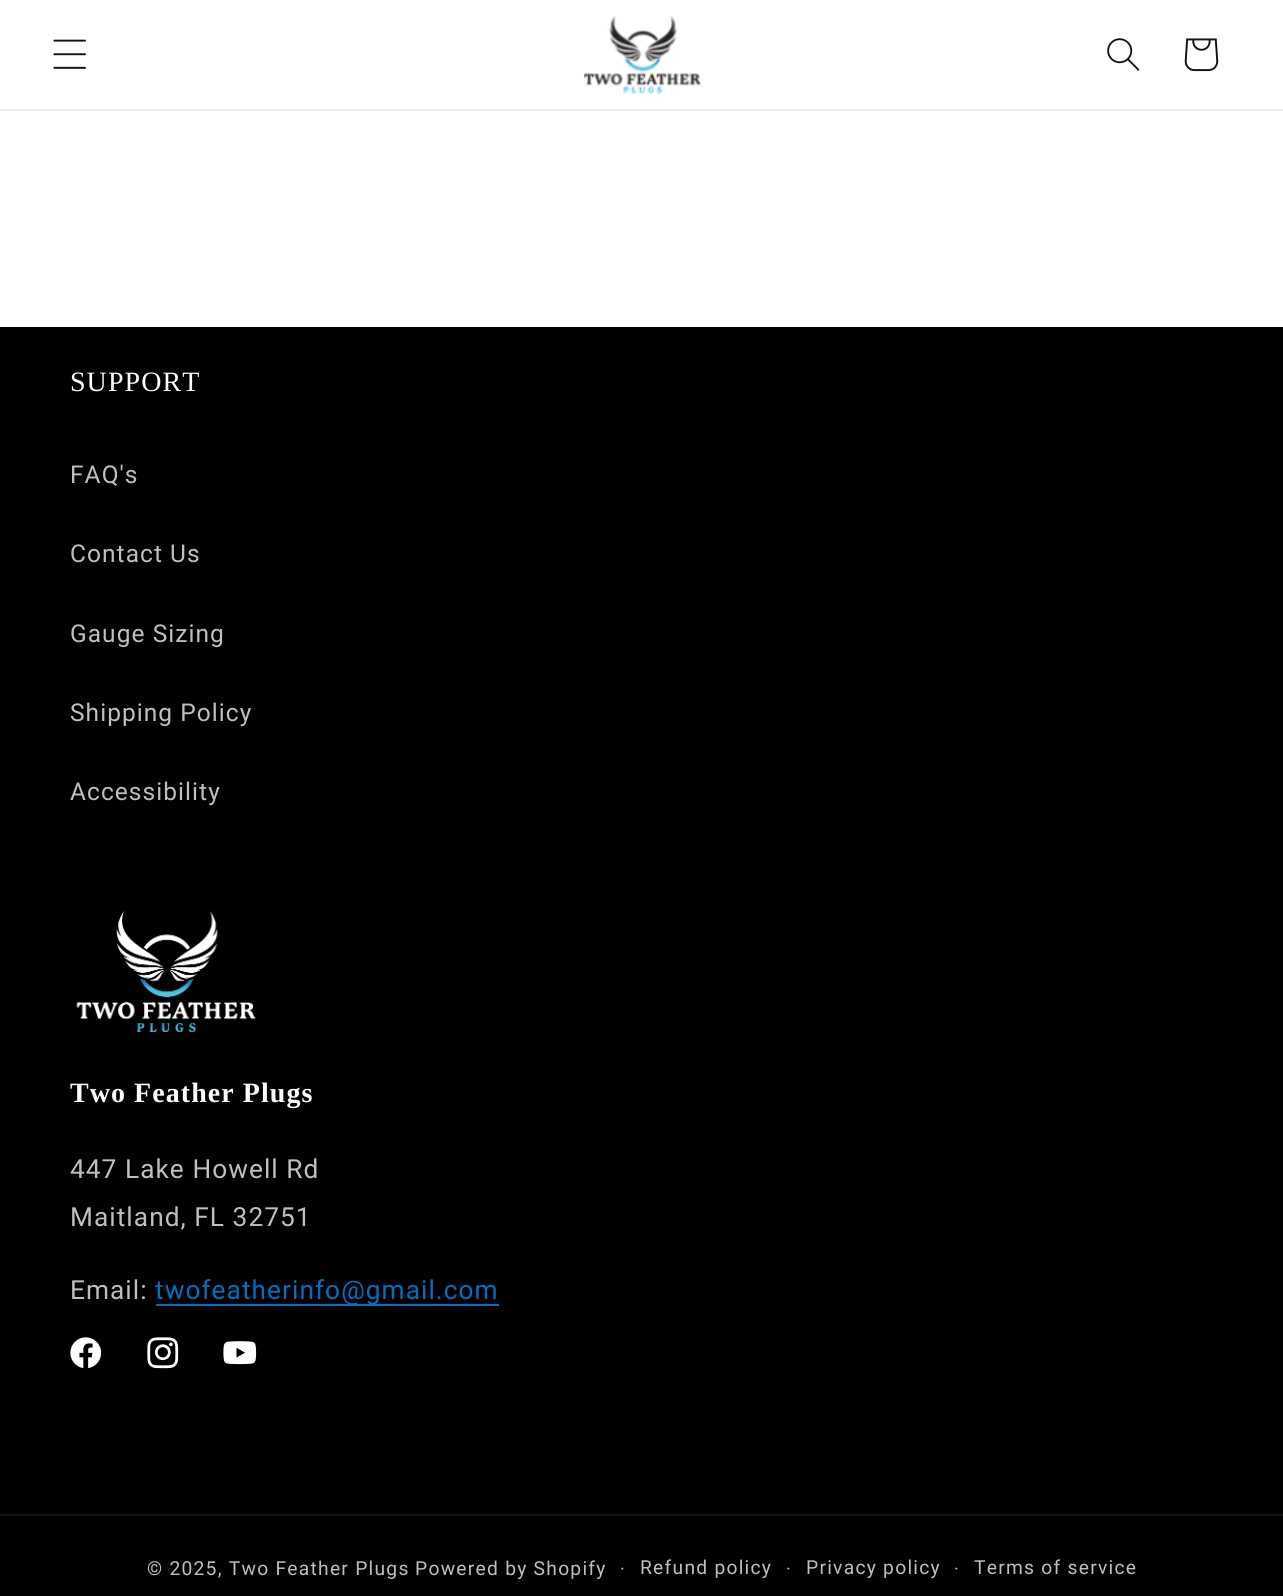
import math
import cairo

surface = cairo.ImageSurface(cairo.Format.RGB24, 1283, 1596)
ctx = cairo.Context(surface)
options = cairo.FontOptions()
options.set_hint_metrics(cairo.HintMetrics.OFF)
options.set_hint_style(cairo.HintStyle.NONE)
ctx.set_font_options(options)
ctx.set_miter_limit(4)


def ink(r, g, b):
    ctx.set_source_rgb(r / 255, g / 255, b / 255)


def write_spaced(x, y, s, letter, word):
    ctx.move_to(x, y)
    for ch in s:
        ctx.show_text(ch)
        ctx.rel_move_to(letter + word * (ch == ' '), 0)


def block(x, y, w, h, *color):
    ink(*color)
    ctx.rectangle(x, y, w, h)
    ctx.fill()


def paste(path, x, y, w, h):
    ctx.save()
    ctx.set_source_surface(cairo.ImageSurface.create_from_png(path), x, y)
    ctx.rectangle(x, y, w, h)
    ctx.fill()
    ctx.restore()


ink(255, 255, 255)
ctx.paint()
block(0, 109, 1283, 2, 236, 236, 236)
paste("pic1.png", 53, 39, 33, 30)
paste("pic2.png", 583, 16, 118, 79)
paste("pic3.png", 1107, 38, 33, 33)
paste("pic4.png", 1184, 38, 35, 34)
block(0, 327, 1283, 1269, 0, 0, 0)
ctx.select_font_face("Liberation Serif")
ctx.set_font_size(28)
ink(255, 255, 255)
write_spaced(70, 391, "SUPPORT", 1.05, 0)
ctx.select_font_face("Roboto")
ctx.set_font_size(24.5)
ink(191, 191, 191)
write_spaced(70, 483, "FAQ's", 1.05, 0)
write_spaced(70, 562, "Contact Us", 1.05, 0)
write_spaced(70, 642, "Gauge Sizing", 1.05, 0)
write_spaced(70, 721, "Shipping Policy", 1.05, 0)
write_spaced(70, 800, "Accessibility", 1.05, 0)
paste("pic5.png", 76, 911, 180, 122)
ctx.select_font_face("Liberation Serif", cairo.FontSlant.NORMAL, cairo.FontWeight.BOLD)
ctx.set_font_size(28)
ink(255, 255, 255)
write_spaced(70, 1102, "Two Feather Plugs", 1.05, 0)
ctx.select_font_face("Roboto")
ctx.set_font_size(26.25)
ink(191, 191, 191)
write_spaced(70, 1178, "447 Lake Howell Rd", 1.05, 0)
write_spaced(70, 1226, "Maitland, FL 32751", 1.05, 0)
write_spaced(70, 1299, "Email:", 1.05, 0)
block(156, 1304, 343, 2, 0, 113, 190)
write_spaced(155, 1299, "twofeatherinfo@gmail.com", 1.05, 0)
paste("pic6.png", 70, 1337, 32, 32)
paste("pic7.png", 147, 1337, 32, 32)
paste("pic8.png", 223, 1341, 34, 24)
block(0, 1514, 1283, 2, 20, 20, 20)
ctx.set_font_size(19.25)
ink(191, 191, 191)
write_spaced(147, 1575, "© 2025, Two Feather Plugs", 1.25, 0)
write_spaced(415, 1575, "Powered by Shopify", 1.25, 0)
ctx.set_font_size(18)
write_spaced(620, 1575, "·", 1.25, 0)
ctx.set_font_size(19.25)
write_spaced(640, 1574, "Refund policy", 1.25, 0)
ctx.set_font_size(18)
write_spaced(786, 1575, "·", 1.25, 0)
ctx.set_font_size(19.25)
write_spaced(806, 1574, "Privacy policy", 1.25, 0)
ctx.set_font_size(18)
write_spaced(954, 1575, "·", 1.25, 0)
ctx.set_font_size(19.25)
write_spaced(974, 1574, "Terms of service", 1.25, 0)
surface.write_to_png("screenshot.png")
